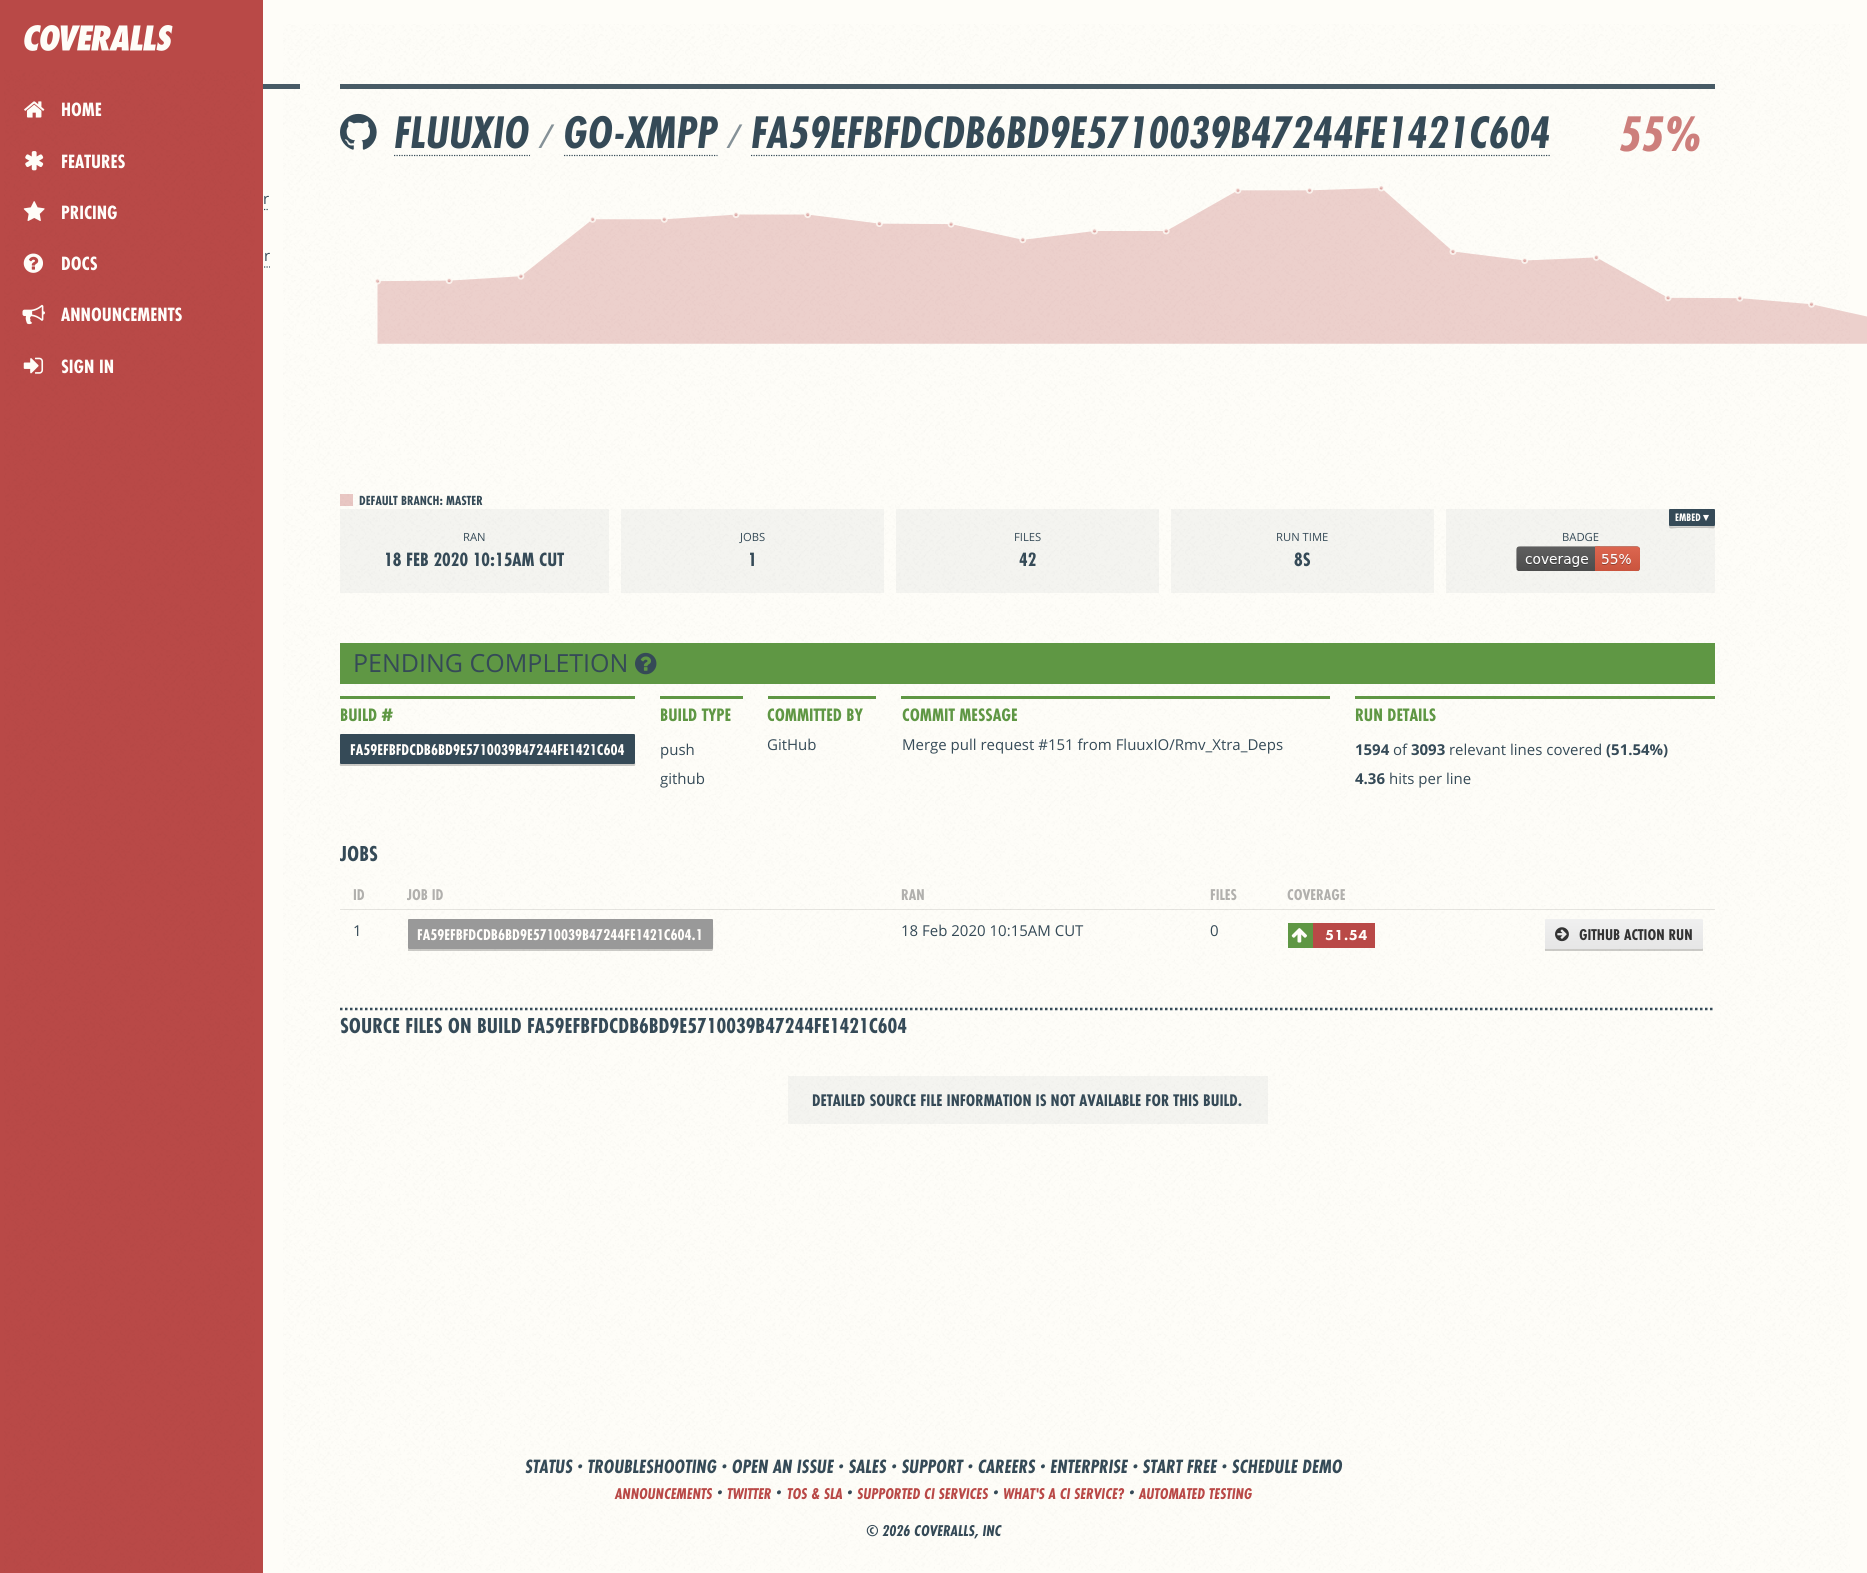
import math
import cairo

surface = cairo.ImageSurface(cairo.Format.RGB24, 1867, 1573)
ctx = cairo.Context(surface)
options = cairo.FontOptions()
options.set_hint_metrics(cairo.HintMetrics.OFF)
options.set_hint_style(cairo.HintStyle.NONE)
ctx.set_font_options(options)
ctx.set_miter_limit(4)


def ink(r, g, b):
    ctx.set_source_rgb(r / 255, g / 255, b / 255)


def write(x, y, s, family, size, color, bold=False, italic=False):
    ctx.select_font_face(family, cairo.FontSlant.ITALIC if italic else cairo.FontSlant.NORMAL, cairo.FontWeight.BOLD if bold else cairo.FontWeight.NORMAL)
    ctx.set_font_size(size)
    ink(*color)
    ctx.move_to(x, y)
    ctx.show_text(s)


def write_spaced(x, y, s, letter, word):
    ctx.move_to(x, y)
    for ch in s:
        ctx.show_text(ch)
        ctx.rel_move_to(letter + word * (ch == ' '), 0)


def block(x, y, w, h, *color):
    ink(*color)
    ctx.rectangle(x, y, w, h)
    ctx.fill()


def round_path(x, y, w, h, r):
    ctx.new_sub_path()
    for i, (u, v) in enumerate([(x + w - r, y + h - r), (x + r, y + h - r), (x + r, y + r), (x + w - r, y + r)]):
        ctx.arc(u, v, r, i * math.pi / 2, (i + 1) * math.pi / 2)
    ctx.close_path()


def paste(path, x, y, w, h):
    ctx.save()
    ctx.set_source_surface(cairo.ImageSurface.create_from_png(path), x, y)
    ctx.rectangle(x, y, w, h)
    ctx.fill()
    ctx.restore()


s1 = dict(family="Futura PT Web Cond", size=20, color=(255, 253, 250), bold=True)
s2 = dict(family="Open Sans", size=15, color=(53, 74, 87))
s3 = dict(family="Futura PT Web Cond", size=47.5, color=(53, 74, 87), bold=True, italic=True)
s4 = dict(family="Open Sans", size=33, color=(133, 145, 151), italic=True)
s5 = dict(family="Futura PT Web Cond", size=52, color=(205, 127, 124), bold=True, italic=True)
s6 = dict(family="Futura PT Web Cond", size=13.75, color=(53, 74, 87), bold=True)
s7 = dict(family="Futura PT Web Cond", size=11.25, color=(255, 253, 250), bold=True)
s8 = dict(family="DejaVu Sans", size=11.25, color=(255, 253, 250), bold=True)
s9 = dict(family="Open Sans", size=11.25, color=(53, 74, 87))
s10 = dict(family="Futura PT Web Cond", size=20, color=(53, 74, 87), bold=True)
s11 = dict(family="Open Sans", size=25, color=(53, 74, 87))
s12 = dict(family="Futura PT Web Cond", size=18.75, color=(95, 151, 68), bold=True)
s13 = dict(family="Futura PT Web Cond", size=16.25, color=(255, 253, 250), bold=True)
s14 = dict(family="Open Sans", size=15, color=(53, 74, 87), bold=True)
s15 = dict(family="Futura PT Web Cond", size=22.5, color=(53, 74, 87), bold=True)
s16 = dict(family="Futura PT Web Cond", size=16.25, color=(177, 176, 173), bold=True)
s17 = dict(family="Futura PT Web Cond", size=16.25, color=(51, 51, 51), bold=True)
s18 = dict(family="Futura PT Web Cond", size=17.5, color=(53, 74, 87), bold=True)
s19 = dict(family="Futura PT Web Cond", size=20, color=(53, 74, 87), bold=True, italic=True)
s20 = dict(family="Futura PT Web Cond", size=16.25, color=(185, 73, 71), bold=True, italic=True)
s21 = dict(family="Futura PT Web Cond", size=16.25, color=(53, 74, 87), bold=True, italic=True)

ink(254, 253, 248)
ctx.paint()
block(340, 909, 1375, 1, 229, 228, 223)
block(340, 494, 13, 12, 233, 199, 195)
paste("pic1.png", 283, 24, 1567, 1547)
ctx.new_path()
ctx.move_to(119, 209.5)
ctx.line_to(269, 209.5)
ink(53, 74, 87)
ctx.set_line_width(1.2)
ctx.set_dash([1.25, 1.25])
ctx.stroke()
ctx.new_path()
ctx.move_to(119, 267)
ctx.line_to(270, 267)
ctx.stroke()
block(0, 0, 263, 1573, 185, 73, 71)
paste("pic2.png", 4, 70, 251, 1501)
paste("pic3.png", 24, 25, 149, 26)
paste("pic4.png", 24, 101, 21, 17)
write(61, 116, "HOME", **s1)
paste("pic5.png", 25, 151, 19, 20)
write(61, 168, "FEATURES", **s1)
paste("pic6.png", 23, 201, 22, 20)
write(61, 219, "PRICING", **s1)
paste("pic7.png", 23, 253, 20, 20)
write(61, 270, "DOCS", **s1)
paste("pic8.png", 22, 304, 23, 21)
write(61, 321, "ANNOUNCEMENTS", **s1)
paste("pic9.png", 23, 357, 21, 17)
write(61, 373, "SIGN IN", **s1)
ctx.set_source_rgba(0.208, 0.29, 0.341, 0.9)
ctx.rectangle(263, 84, 37, 5)
ctx.fill()
write(263, 204, "r", **s2)
write(264, 261, "r", **s2)
ctx.set_source_rgba(0.208, 0.29, 0.341, 0.9)
ctx.rectangle(340, 84, 1375, 5)
ctx.fill()
paste("pic10.png", 340, 113, 37, 37)
ctx.new_path()
ctx.move_to(394, 155.5)
ctx.line_to(530, 155.5)
ink(53, 74, 87)
ctx.stroke()
write(394, 148, "FLUUXIO", **s3)
write(540, 148, "/", **s4)
ctx.new_path()
ctx.move_to(564, 155.5)
ctx.line_to(717.5, 155.5)
ink(53, 74, 87)
ctx.stroke()
write(563, 148, "GO-XMPP", **s3)
write(728, 148, "/", **s4)
ctx.new_path()
ctx.move_to(751, 155.5)
ctx.line_to(1550, 155.5)
ink(53, 74, 87)
ctx.stroke()
write(751, 148, "FA59EFBFDCDB6BD9E5710039B47244FE1421C604", **s3)
write(1619, 151, "55%", **s5)
paste("pic11.png", 375, 186, 1492, 158)
write(359, 505, "DEFAULT BRANCH: MASTER", **s6)
ctx.set_source_rgba(0.208, 0.29, 0.341, 0.05)
ctx.rectangle(1446, 509, 269, 84)
ctx.fill()
ctx.set_source_rgba(0, 0, 0, 0.2)
ctx.new_path()
ctx.move_to(1669, 526)
ctx.curve_to(1669, 530, 1673, 528, 1677, 528)
ctx.line_to(1707, 528)
ctx.curve_to(1713, 528, 1715, 530, 1715, 525)
ctx.curve_to(1715, 526, 1714, 526, 1714, 526)
ctx.curve_to(1709, 526, 1670, 527, 1669, 526)
ctx.close_path()
ctx.fill()
ink(53, 74, 87)
round_path(1669, 509, 46, 17, 1)
ctx.fill()
write(1675, 521, "EMBED", **s7)
write(1703, 521, "▾", **s8)
paste("pic12.png", 1516, 546, 124, 25)
write(1562, 541, "BADGE", **s9)
ctx.set_source_rgba(0.208, 0.29, 0.341, 0.05)
ctx.rectangle(340, 509, 269, 84)
ctx.fill()
write(463, 541, "RAN", **s9)
write(384, 566, "18 FEB 2020 10:15AM CUT", **s10)
ctx.set_source_rgba(0.208, 0.29, 0.341, 0.05)
ctx.rectangle(621, 509, 263, 84)
ctx.fill()
write(740, 541, "JOBS", **s9)
write(748, 566, "1", **s10)
ctx.set_source_rgba(0.208, 0.29, 0.341, 0.05)
ctx.rectangle(896, 509, 263, 84)
ctx.fill()
write(1014, 541, "FILES", **s9)
write(1019, 566, "42", **s10)
ctx.set_source_rgba(0.208, 0.29, 0.341, 0.05)
ctx.rectangle(1171, 509, 263, 84)
ctx.fill()
write(1276, 541, "RUN TIME", **s9)
write(1294, 566, "8S", **s10)
block(340, 643, 1375, 41, 95, 151, 68)
write(353, 672, "PENDING COMPLETION", **s11)
paste("pic13.png", 635, 652, 22, 23)
block(340, 696, 295, 3, 95, 151, 68)
write(340, 721, "BUILD #", **s12)
ctx.set_source_rgba(0, 0, 0, 0.2)
ctx.new_path()
ctx.move_to(340, 762)
ctx.curve_to(340, 763, 339, 766, 341, 766)
ctx.line_to(634, 766)
ctx.curve_to(636, 766, 635, 763, 635, 762)
ctx.curve_to(635, 763, 634, 764, 634, 764)
ctx.line_to(341, 764)
ctx.curve_to(341, 764, 340, 763, 340, 762)
ctx.close_path()
ctx.fill()
ink(53, 74, 87)
round_path(340, 734, 295, 30, 1)
ctx.fill()
write(350, 755, "FA59EFBFDCDB6BD9E5710039B47244FE1421C604", **s13)
block(660, 696, 83, 3, 95, 151, 68)
write(660, 721, "BUILD TYPE", **s12)
write(660, 755, "push", **s2)
write(660, 784, "github", **s2)
block(768, 696, 108, 3, 95, 151, 68)
write(767, 721, "COMMITTED BY", **s12)
write(767, 750, "GitHub", **s2)
block(901, 696, 429, 3, 95, 151, 68)
write(902, 721, "COMMIT MESSAGE", **s12)
write(902, 750, "Merge pull request #151 from FluuxIO/Rmv_Xtra_Deps", **s2)
block(1355, 696, 360, 3, 95, 151, 68)
write(1355, 721, "RUN DETAILS", **s12)
write(1355, 755, "1594", **s14)
write(1393, 755, "of", **s2)
write(1411, 755, "3093", **s14)
write(1449, 755, "relevant lines covered", **s2)
write(1606, 755, "(51.54%)", **s14)
write(1355, 784, "4.36", **s14)
write(1389, 784, "hits per line", **s2)
write(340, 861, "JOBS", **s15)
write(353, 900, "ID", **s16)
write(407, 900, "JOB ID", **s16)
write(901, 900, "RAN", **s16)
write(1210, 900, "FILES", **s16)
write(1287, 900, "COVERAGE", **s16)
write(353, 936, "1", **s2)
ctx.set_source_rgba(0, 0, 0, 0.2)
ctx.new_path()
ctx.move_to(408, 949)
ctx.line_to(408, 951)
ctx.line_to(712, 951)
ctx.line_to(713, 950)
ctx.curve_to(713, 947, 714, 922, 712, 921)
ctx.line_to(712, 939)
ctx.curve_to(712, 940, 714, 949, 711, 949)
ctx.close_path()
ctx.fill()
ink(153, 153, 153)
round_path(408, 919, 305, 30, 1)
ctx.fill()
write(417, 940, "FA59EFBFDCDB6BD9E5710039B47244FE1421C604.1", **s13)
write(901, 936, "18 Feb 2020 10:15AM CUT", **s2)
write(1210, 936, "0", **s2)
block(1288, 923, 25, 25, 95, 151, 68)
paste("pic14.png", 1291, 928, 16, 15)
block(1313, 923, 62, 25, 185, 73, 71)
ctx.select_font_face("Futura PT Black")
ink(255, 253, 250)
write_spaced(1325, 940, "51.54", 0.5, 0)
ctx.set_source_rgba(0, 0, 0, 0.2)
ctx.new_path()
ctx.move_to(1545, 948)
ctx.line_to(1545, 950)
ctx.curve_to(1545, 951, 1545, 951, 1546, 951)
ctx.line_to(1702, 951)
ctx.curve_to(1703, 951, 1703, 951, 1703, 950)
ctx.line_to(1703, 922)
ctx.line_to(1702, 921)
ctx.line_to(1702, 948)
ctx.curve_to(1702, 948, 1702, 949, 1701, 949)
ctx.line_to(1546, 949)
ctx.curve_to(1546, 949, 1545, 948, 1545, 948)
ctx.close_path()
ctx.fill()
gradient = cairo.LinearGradient(1624, 919, 1624, 949)
gradient.add_color_stop_rgba(0, 0.941, 0.941, 0.941, 1)
gradient.add_color_stop_rgba(1, 0.902, 0.902, 0.902, 1)
ctx.set_source(gradient)
round_path(1545, 919, 158, 30, 1)
ctx.fill()
paste("pic15.png", 1555, 927, 14, 15)
write(1579, 940, "GITHUB ACTION RUN", **s17)
ctx.new_path()
ctx.move_to(340, 1009)
ctx.line_to(1715, 1009)
ink(53, 74, 87)
ctx.set_line_width(2.5)
ctx.set_dash([2.5, 2.5])
ctx.stroke()
write(340, 1033, "SOURCE FILES ON BUILD FA59EFBFDCDB6BD9E5710039B47244FE1421C604", **s15)
ctx.set_source_rgba(0.208, 0.29, 0.341, 0.05)
ctx.rectangle(788, 1076, 480, 48)
ctx.fill()
write(812, 1106, "DETAILED SOURCE FILE INFORMATION IS NOT AVAILABLE FOR THIS BUILD.", **s18)
write(525, 1473, "STATUS · TROUBLESHOOTING · OPEN AN ISSUE · SALES · SUPPORT · CAREERS · ENTERPRISE · START FREE · SCHEDULE DEMO", **s19)
write(615, 1499, "ANNOUNCEMENTS", **s20)
write(717, 1499, "·", **s19)
write(727, 1499, "TWITTER", **s20)
write(776, 1499, "·", **s19)
write(787, 1499, "TOS & SLA", **s20)
write(847, 1499, "·", **s19)
write(857, 1499, "SUPPORTED CI SERVICES", **s20)
write(993, 1499, "·", **s19)
write(1003, 1499, "WHAT'S A CI SERVICE?", **s20)
write(1129, 1499, "·", **s19)
write(1139, 1499, "AUTOMATED TESTING", **s20)
write(866, 1536, "© 2026 COVERALLS, INC", **s21)
surface.write_to_png("screenshot.png")
